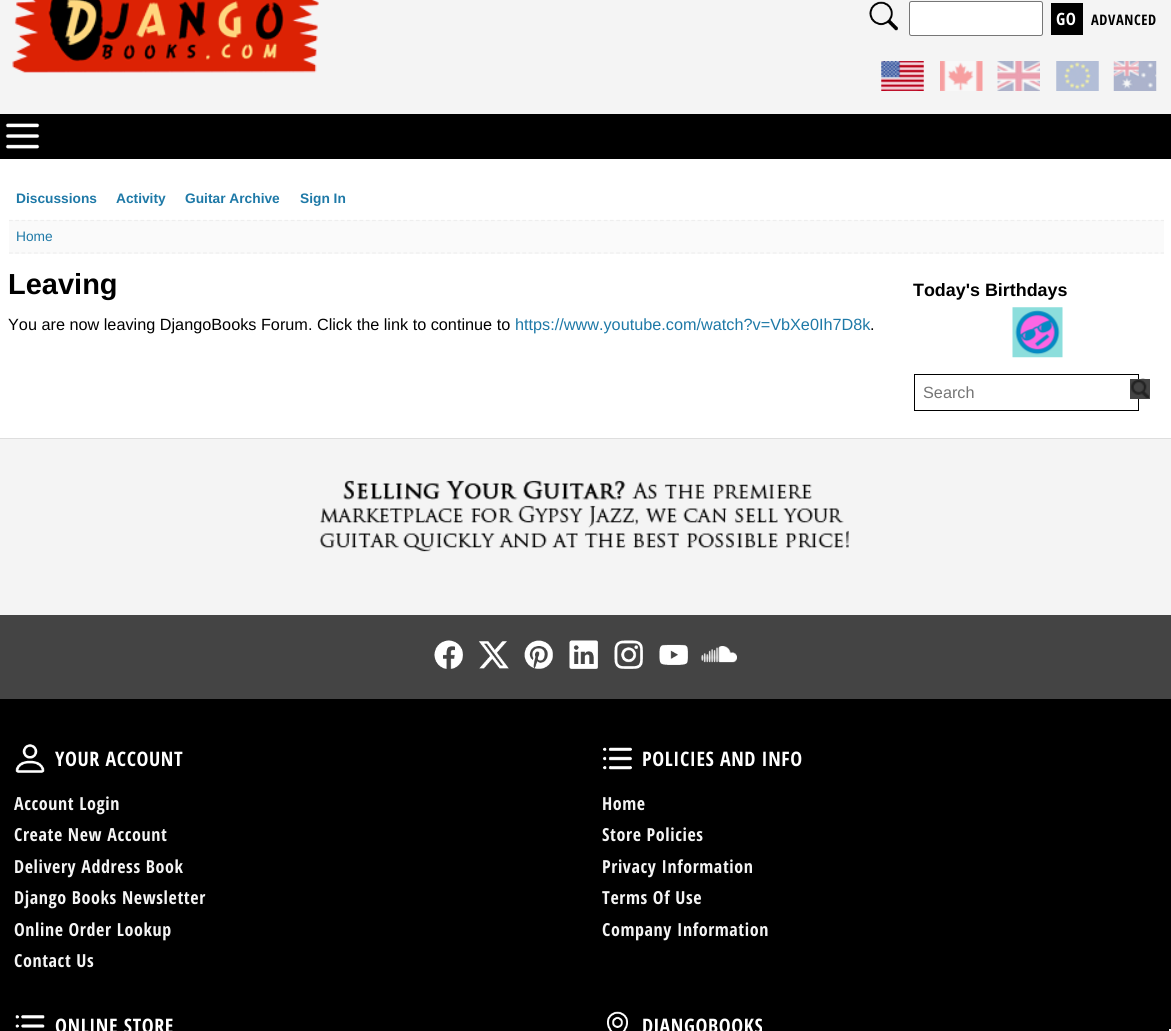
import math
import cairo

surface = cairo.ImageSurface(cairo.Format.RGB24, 1171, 1031)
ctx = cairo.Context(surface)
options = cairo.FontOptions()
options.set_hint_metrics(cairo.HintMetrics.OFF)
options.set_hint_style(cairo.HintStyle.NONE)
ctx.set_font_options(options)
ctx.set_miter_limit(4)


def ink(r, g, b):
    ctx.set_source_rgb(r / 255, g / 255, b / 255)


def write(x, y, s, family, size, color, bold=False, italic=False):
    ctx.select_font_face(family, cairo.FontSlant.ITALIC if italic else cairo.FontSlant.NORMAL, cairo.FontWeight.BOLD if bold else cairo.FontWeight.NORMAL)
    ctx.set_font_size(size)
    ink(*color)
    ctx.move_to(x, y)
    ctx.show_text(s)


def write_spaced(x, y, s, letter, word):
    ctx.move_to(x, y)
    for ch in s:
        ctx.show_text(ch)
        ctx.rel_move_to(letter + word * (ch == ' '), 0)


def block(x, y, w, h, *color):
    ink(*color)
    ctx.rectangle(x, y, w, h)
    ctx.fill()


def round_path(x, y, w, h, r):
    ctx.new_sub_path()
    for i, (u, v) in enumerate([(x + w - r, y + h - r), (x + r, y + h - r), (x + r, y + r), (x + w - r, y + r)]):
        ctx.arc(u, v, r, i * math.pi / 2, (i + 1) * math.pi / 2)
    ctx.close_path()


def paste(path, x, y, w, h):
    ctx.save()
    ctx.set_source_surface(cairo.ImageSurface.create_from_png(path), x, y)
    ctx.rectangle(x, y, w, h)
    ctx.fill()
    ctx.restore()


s1 = dict(family="Liberation Sans", size=13.75, color=(30, 121, 167), bold=True)
s2 = dict(family="Liberation Sans", size=13.75, color=(30, 121, 167))
s3 = dict(family="Liberation Sans", size=29, color=(0, 0, 0), bold=True)
s4 = dict(family="Liberation Sans", size=16.25, color=(0, 0, 0))
s5 = dict(family="Liberation Sans", size=16.25, color=(30, 121, 167))
s6 = dict(family="Liberation Sans", size=17.9, color=(0, 0, 0), bold=True)
s7 = dict(family="Liberation Sans", size=16.25, color=(117, 117, 117))

ink(255, 255, 255)
ctx.paint()
block(0, 0, 1171, 114, 244, 244, 244)
paste("pic1.png", 12, 0, 307, 73)
paste("pic2.png", 869, 1, 29, 30)
ink(255, 255, 255)
round_path(909.5, 1.5, 133, 34, 2)
ctx.fill_preserve()
ink(118, 118, 118)
ctx.set_line_width(1)
ctx.stroke()
block(1051, 3, 32, 32, 0, 0, 0)
ctx.select_font_face("Open Sans Condensed", cairo.FontSlant.NORMAL, cairo.FontWeight.BOLD)
ctx.set_font_size(17)
ink(255, 255, 255)
write_spaced(1056, 25, "GO", 0.6, 0)
ctx.set_font_size(14.5)
ink(0, 0, 0)
write_spaced(1091, 25, "ADVANCED", 0.6, 0)
paste("pic3.png", 881, 61, 43, 30)
paste("pic4.png", 940, 61, 43, 30)
paste("pic5.png", 997, 61, 43, 30)
paste("pic6.png", 1056, 61, 43, 30)
paste("pic7.png", 1113, 61, 44, 30)
block(0, 114, 1171, 45, 0, 0, 0)
paste("pic8.png", 5, 123, 35, 26)
write(16, 203, "Discussions", **s1)
write(116, 203, "Activity", **s1)
write(185, 203, "Guitar Archive", **s1)
write(300, 203, "Sign In", **s1)
block(9, 220, 1155, 34, 250, 250, 250)
ctx.new_path()
ctx.move_to(9, 220.5)
ctx.line_to(1164, 220.5)
ink(238, 238, 238)
ctx.set_line_width(1.2)
ctx.set_dash([3.75, 2.51])
ctx.stroke()
ctx.new_path()
ctx.move_to(9, 253)
ctx.line_to(1164, 253)
ctx.stroke()
write(16, 241, "Home", **s2)
write(8, 294, "Leaving", **s3)
write(8, 330, "You are now leaving DjangoBooks Forum. Click the link to continue to", **s4)
write(515, 330, "https://www.youtube.com/watch?v=VbXe0Ih7D8k", **s5)
write(870, 330, ".", **s4)
write(913, 296, "Today's Birthdays", **s6)
paste("pic9.png", 1012, 307, 51, 51)
ctx.rectangle(914.5, 374.5, 224, 36)
ctx.set_line_width(1)
ctx.set_dash([])
ctx.stroke()
write(923, 398, "Search", **s7)
block(1131, 380, 18, 18, 68, 68, 68)
paste("pic10.png", 1131, 378, 18, 20)
ctx.rectangle(1130.5, 379.5, 19, 19)
ctx.stroke()
block(0, 439, 1171, 176, 244, 244, 244)
block(0, 438, 1171, 1, 222, 222, 222)
paste("pic11.png", 319, 480, 530, 72)
block(0, 615, 1171, 84, 68, 68, 68)
paste("pic12.png", 434, 640, 29, 29)
paste("pic13.png", 478, 641, 31, 28)
paste("pic14.png", 524, 640, 29, 29)
paste("pic15.png", 569, 640, 29, 29)
paste("pic16.png", 614, 640, 29, 29)
paste("pic17.png", 659, 644, 29, 21)
paste("pic18.png", 701, 646, 36, 17)
block(0, 699, 1171, 332, 0, 0, 0)
paste("pic19.png", 15, 744, 30, 29)
ctx.select_font_face("Open Sans Condensed", cairo.FontSlant.NORMAL, cairo.FontWeight.BOLD)
ctx.set_font_size(20)
ink(255, 255, 255)
write_spaced(55, 766, "YOUR ACCOUNT", 0.6, 0)
ctx.set_font_size(18)
ink(244, 244, 244)
write_spaced(14, 810, "Account Login", 0.6, 0)
write_spaced(14, 841, "Create New Account", 0.6, 0)
write_spaced(14, 873, "Delivery Address Book", 0.6, 0)
write_spaced(14, 904, "Django Books Newsletter", 0.6, 0)
write_spaced(14, 936, "Online Order Lookup", 0.6, 0)
write_spaced(14, 967, "Contact Us", 0.6, 0)
paste("pic20.png", 603, 747, 29, 23)
ctx.set_font_size(20)
ink(255, 255, 255)
write_spaced(642, 766, "POLICIES AND INFO", 0.6, 0)
ctx.set_font_size(18)
ink(244, 244, 244)
write_spaced(602, 810, "Home", 0.6, 0)
write_spaced(602, 841, "Store Policies", 0.6, 0)
write_spaced(602, 873, "Privacy Information", 0.6, 0)
write_spaced(602, 904, "Terms Of Use", 0.6, 0)
write_spaced(602, 936, "Company Information", 0.6, 0)
paste("pic21.png", 15, 1015, 30, 13)
ctx.set_font_size(20)
ink(255, 255, 255)
write_spaced(55, 1033, "ONLINE STORE", 0.6, 0)
paste("pic22.png", 607, 1011, 21, 20)
write_spaced(642, 1033, "DJANGOBOOKS", 0.6, 0)
block(1169, 1029, 2, 2, 245, 245, 245)
surface.write_to_png("screenshot.png")
